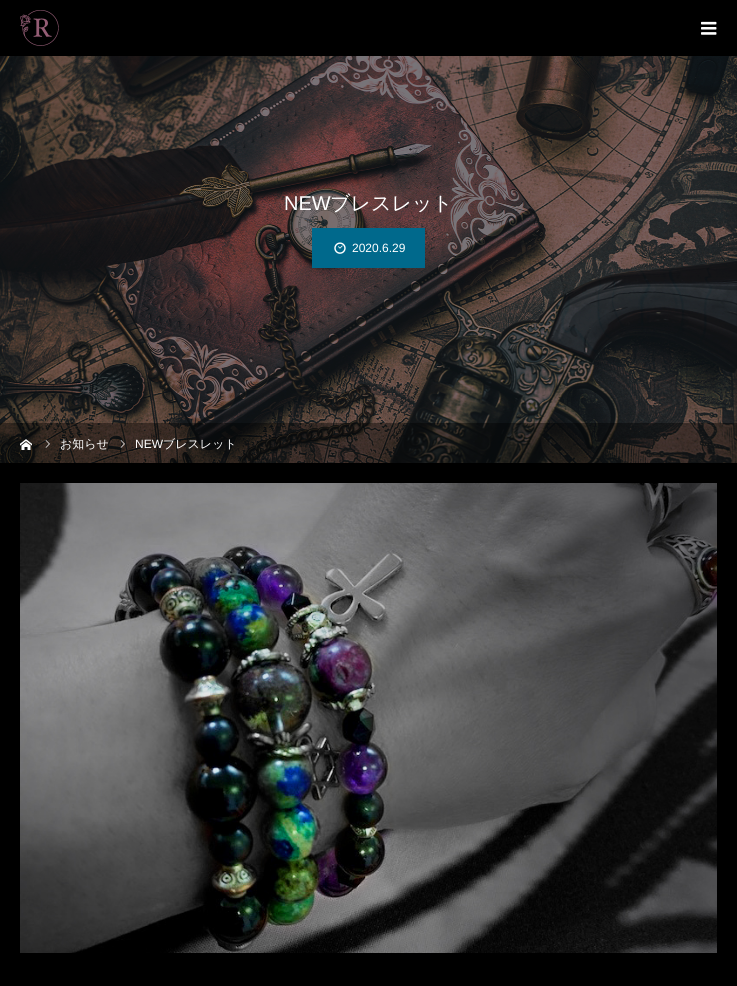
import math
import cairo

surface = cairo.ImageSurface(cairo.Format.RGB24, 737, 986)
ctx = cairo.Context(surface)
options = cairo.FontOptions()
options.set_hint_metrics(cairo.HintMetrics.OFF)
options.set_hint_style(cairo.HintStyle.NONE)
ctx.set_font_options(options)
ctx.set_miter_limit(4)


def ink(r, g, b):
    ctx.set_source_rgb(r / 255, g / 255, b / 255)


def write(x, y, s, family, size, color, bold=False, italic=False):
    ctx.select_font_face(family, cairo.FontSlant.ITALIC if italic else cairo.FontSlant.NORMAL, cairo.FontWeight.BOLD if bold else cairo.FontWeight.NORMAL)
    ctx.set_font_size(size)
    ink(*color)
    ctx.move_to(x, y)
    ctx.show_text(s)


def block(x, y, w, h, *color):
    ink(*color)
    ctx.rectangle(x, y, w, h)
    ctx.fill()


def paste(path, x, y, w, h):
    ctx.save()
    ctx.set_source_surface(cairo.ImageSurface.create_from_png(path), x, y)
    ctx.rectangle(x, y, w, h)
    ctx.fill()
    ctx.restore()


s1 = dict(family="Liberation Sans", size=20, color=(255, 255, 255))
s2 = dict(family="WenQuanYi Zen Hei Medium", size=20, color=(255, 255, 255))
s3 = dict(family="Liberation Sans", size=12, color=(255, 255, 255))
s4 = dict(family="WenQuanYi Zen Hei Medium", size=12, color=(255, 255, 255))

ink(0, 0, 0)
ctx.paint()
paste("pic1.png", 20, 10, 39, 36)
paste("pic2.png", 701, 21, 16, 14)
paste("pic3.png", 0, 56, 737, 407)
write(284, 210, "NEW", **s1)
write(330, 210, "ブレスレット", **s2)
block(312, 228, 113, 40, 0, 105, 140)
paste("pic4.png", 334, 242, 12, 12)
write(352, 252, "2020.6.29", **s3)
ctx.set_source_rgba(0, 0, 0, 0.4)
ctx.rectangle(0, 423, 737, 40)
ctx.fill()
paste("pic5.png", 20, 439, 12, 11)
paste("pic6.png", 45, 440, 5, 8)
write(60, 448, "お知らせ", **s4)
paste("pic7.png", 120, 440, 5, 8)
write(135, 448, "NEW", **s3)
write(163, 448, "ブレスレット", **s4)
paste("pic8.png", 20, 483, 697, 470)
surface.write_to_png("screenshot.png")
